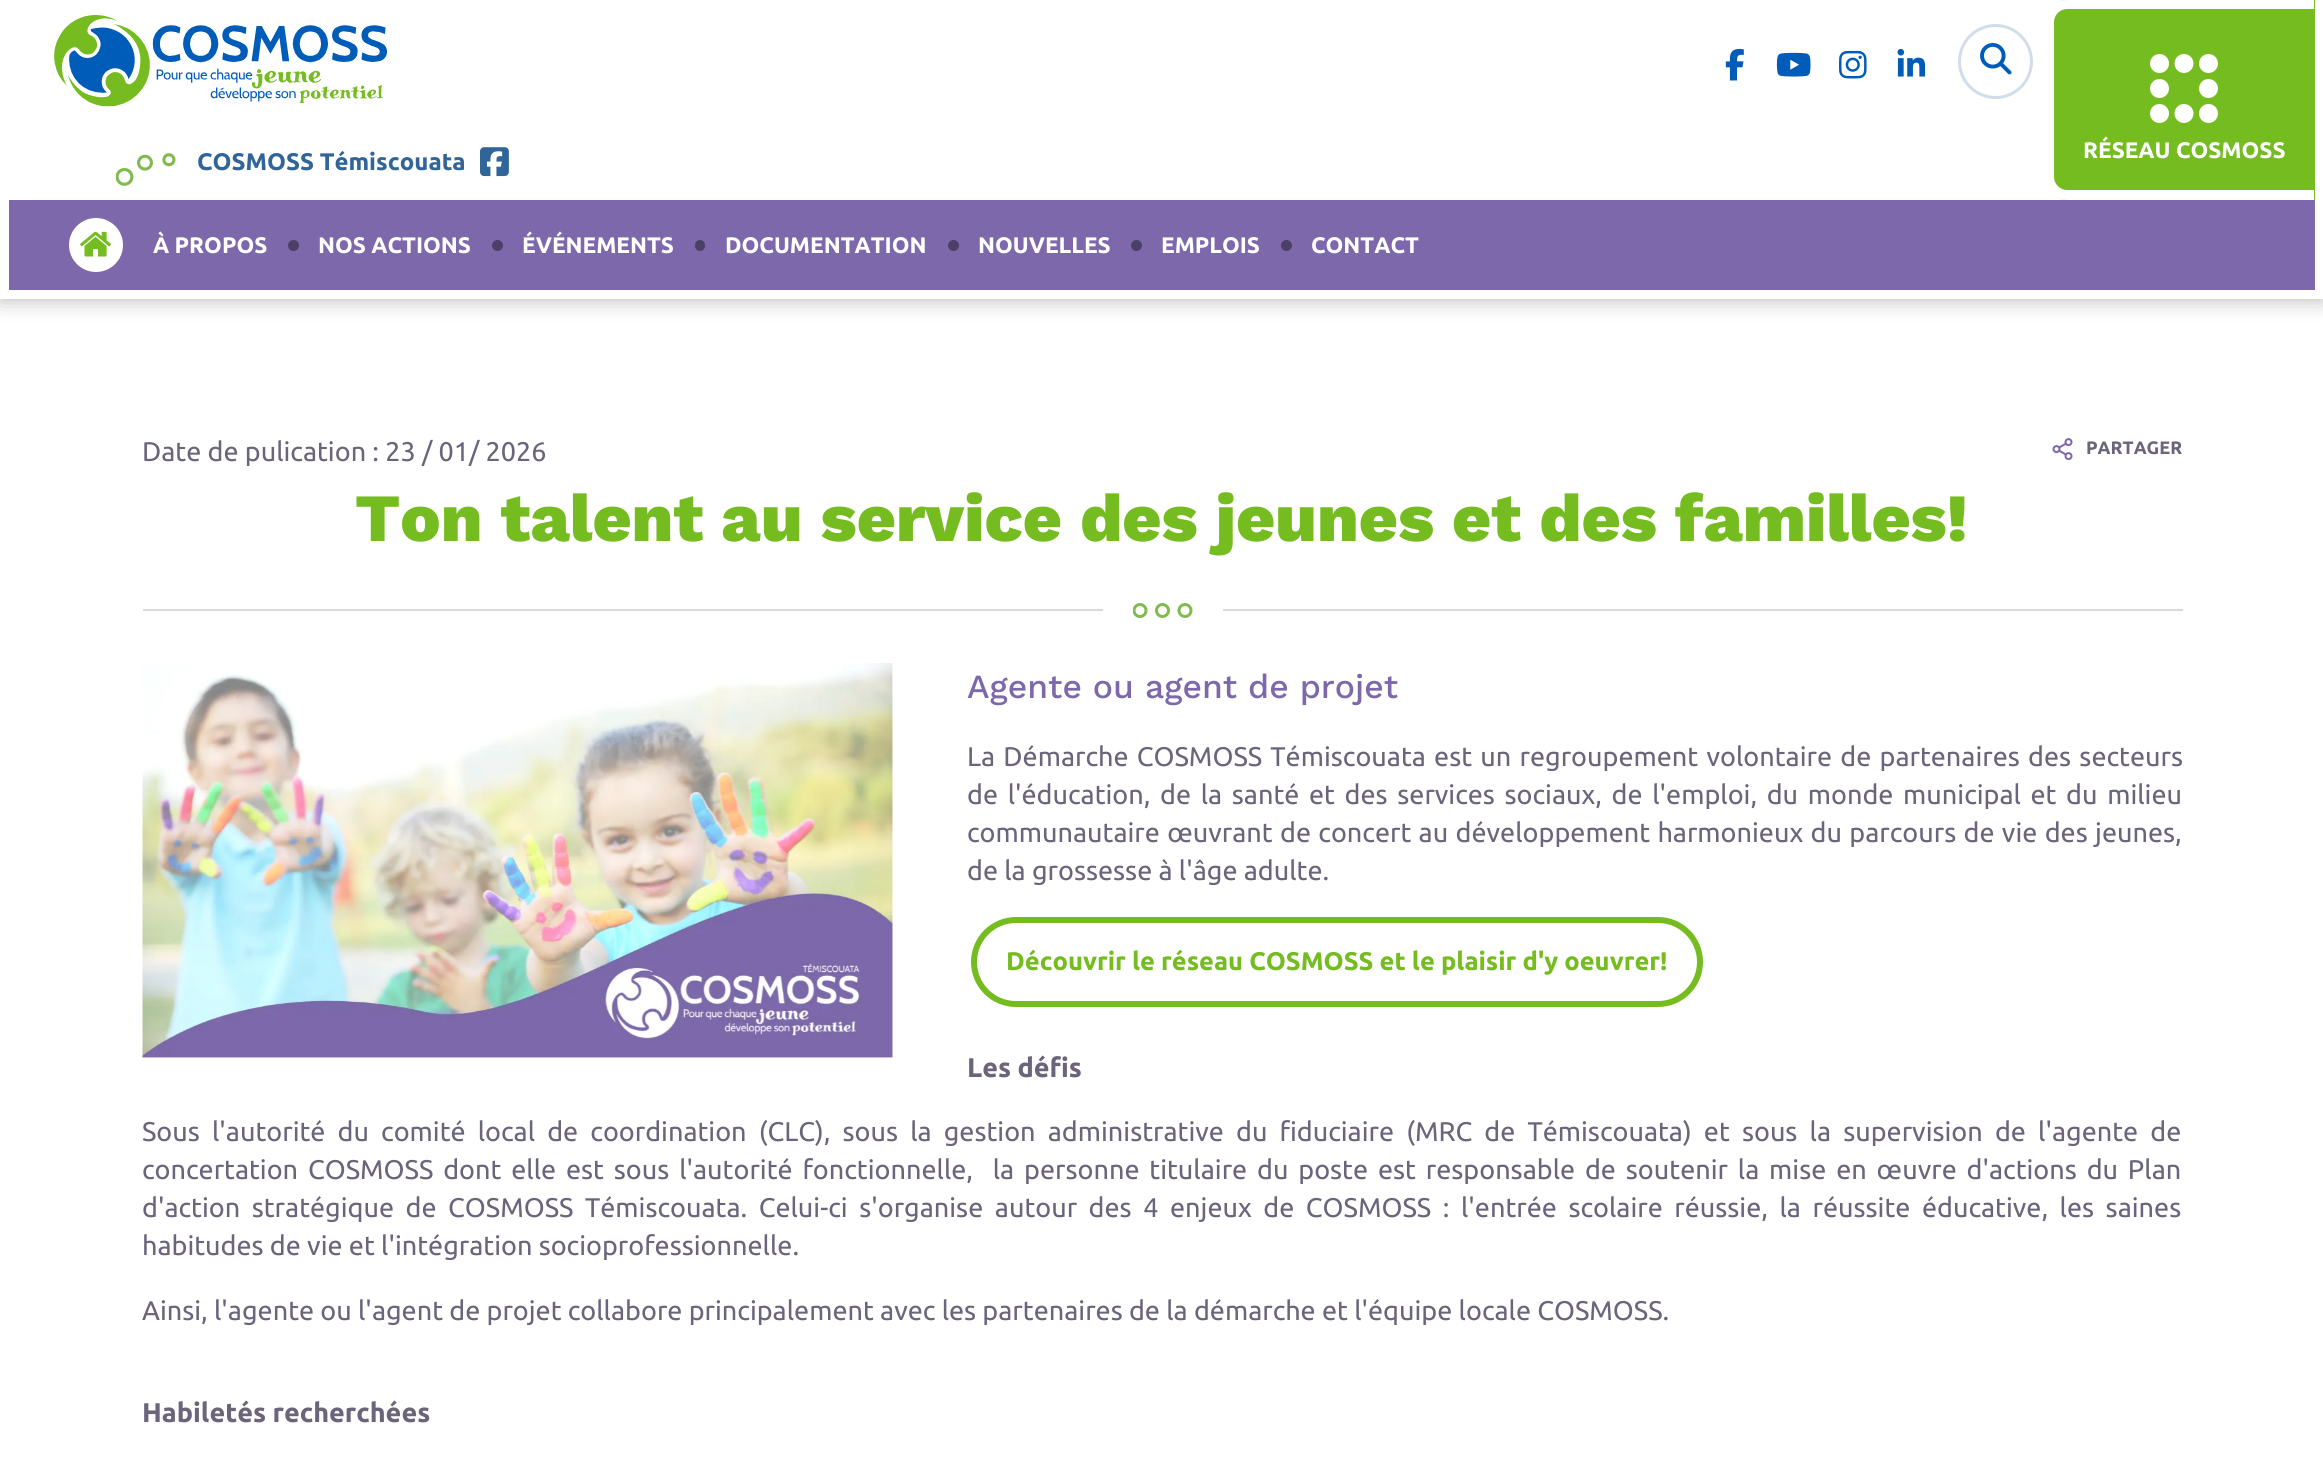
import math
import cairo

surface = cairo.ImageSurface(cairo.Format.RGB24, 2323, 1461)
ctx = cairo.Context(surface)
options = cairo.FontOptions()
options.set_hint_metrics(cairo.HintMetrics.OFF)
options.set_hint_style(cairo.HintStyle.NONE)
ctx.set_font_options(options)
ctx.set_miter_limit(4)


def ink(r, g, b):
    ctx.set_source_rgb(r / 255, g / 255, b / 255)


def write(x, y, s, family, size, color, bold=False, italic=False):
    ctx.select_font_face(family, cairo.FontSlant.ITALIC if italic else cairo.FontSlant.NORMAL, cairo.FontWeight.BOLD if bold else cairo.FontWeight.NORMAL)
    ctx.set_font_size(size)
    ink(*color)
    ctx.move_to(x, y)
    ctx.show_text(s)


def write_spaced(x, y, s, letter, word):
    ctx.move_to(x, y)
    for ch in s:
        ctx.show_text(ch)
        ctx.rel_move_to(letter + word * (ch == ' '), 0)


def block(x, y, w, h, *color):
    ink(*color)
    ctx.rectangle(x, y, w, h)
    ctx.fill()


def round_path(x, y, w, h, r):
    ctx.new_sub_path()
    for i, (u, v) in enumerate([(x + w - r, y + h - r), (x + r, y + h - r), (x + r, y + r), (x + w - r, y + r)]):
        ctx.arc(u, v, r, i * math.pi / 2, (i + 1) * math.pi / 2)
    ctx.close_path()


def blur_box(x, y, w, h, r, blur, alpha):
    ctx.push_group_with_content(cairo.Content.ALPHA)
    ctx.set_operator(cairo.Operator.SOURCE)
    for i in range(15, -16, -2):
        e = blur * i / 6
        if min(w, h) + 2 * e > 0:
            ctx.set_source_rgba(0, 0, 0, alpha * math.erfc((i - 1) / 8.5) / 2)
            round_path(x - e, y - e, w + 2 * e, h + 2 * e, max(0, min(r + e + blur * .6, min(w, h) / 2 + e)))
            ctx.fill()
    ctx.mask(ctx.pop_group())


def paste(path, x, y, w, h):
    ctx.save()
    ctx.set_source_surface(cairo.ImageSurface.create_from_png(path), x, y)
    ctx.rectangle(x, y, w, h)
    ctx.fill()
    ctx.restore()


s1 = dict(family="Ubuntu", size=24, color=(49, 101, 153), bold=True)
s2 = dict(family="Ubuntu", size=22.5, color=(255, 255, 255), bold=True)
s3 = dict(family="Ubuntu", size=27, color=(107, 100, 122))
s4 = dict(family="Work Sans ExtraBold", size=67.5, color=(116, 188, 31))
s5 = dict(family="Ubuntu", size=18, color=(107, 100, 122), bold=True)
s6 = dict(family="Work Sans Medium", size=33.75, color=(125, 104, 171))
s7 = dict(family="Ubuntu", size=25.5, color=(116, 188, 31), bold=True)
s8 = dict(family="Ubuntu", size=27, color=(107, 100, 122), bold=True)

ink(255, 255, 255)
ctx.paint()
ink(0, 0, 0)
blur_box(0, 0, 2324, 299, 0, 11, 0.3)
block(0, 0, 2323, 299, 255, 255, 255)
paste("pic1.png", 54, 15, 333, 92)
paste("pic2.png", 1725, 48, 19, 33)
paste("pic3.png", 1776, 52, 35, 25)
paste("pic4.png", 1839, 50, 28, 29)
paste("pic5.png", 1897, 48, 29, 29)
ctx.arc(1995.5, 61.5, 36, 0, 2 * math.pi)
ink(209, 221, 232)
ctx.set_line_width(3)
ctx.stroke()
paste("pic6.png", 1980, 42, 32, 33)
paste("pic7.png", 116, 153, 60, 33)
write(197, 170, "COSMOSS Témiscouata", **s1)
paste("pic8.png", 480, 147, 29, 30)
ink(116, 188, 31)
ctx.new_path()
ctx.move_to(2068, 0)
ctx.line_to(2315, 0)
ctx.line_to(2315, 200)
ctx.line_to(2068, 200)
ctx.curve_to(2055.5, 200, 2045, 189.5, 2045, 177)
ctx.line_to(2045, 23)
ctx.curve_to(2045, 10.5, 2055.5, 0, 2068, 0)
ctx.close_path()
ctx.fill()
ink(255, 255, 255)
ctx.set_fill_rule(cairo.FillRule.EVEN_ODD)
ctx.new_path()
ctx.move_to(2067, 0)
ctx.line_to(2314, 0)
ctx.line_to(2314, 200)
ctx.line_to(2067, 200)
ctx.curve_to(2055, 200, 2044, 189, 2044, 177)
ctx.line_to(2044, 22)
ctx.curve_to(2044, 10, 2055, 0, 2067, 0)
ctx.close_path()
ctx.move_to(2067, 9)
ctx.line_to(2314, 9)
ctx.line_to(2314, 190)
ctx.line_to(2067, 190)
ctx.curve_to(2060, 190, 2054, 184, 2054, 177)
ctx.line_to(2054, 22)
ctx.curve_to(2054, 15, 2060, 9, 2067, 9)
ctx.close_path()
ctx.fill()
ctx.arc(2159.5, 63.5, 9.5, 0, 2 * math.pi)
ctx.fill()
ctx.arc(2184, 63.5, 9.5, 0, 2 * math.pi)
ctx.fill()
ctx.arc(2208.5, 63.5, 9.5, 0, 2 * math.pi)
ctx.fill()
ctx.arc(2159.5, 113.5, 9.5, 0, 2 * math.pi)
ctx.fill()
ctx.arc(2184, 113.5, 9.5, 0, 2 * math.pi)
ctx.fill()
ctx.arc(2208.5, 113.5, 9.5, 0, 2 * math.pi)
ctx.fill()
ctx.arc(2159.5, 88.5, 9.5, 0, 2 * math.pi)
ctx.fill()
ctx.arc(2208.5, 88.5, 9.5, 0, 2 * math.pi)
ctx.fill()
write(2083, 158, "RÉSEAU COSMOSS", **s2)
block(9, 200, 2306, 90, 125, 104, 171)
ink(255, 255, 255)
ctx.new_path()
ctx.arc(96, 245, 27, 0, 2 * math.pi)
ctx.fill()
paste("pic9.png", 80, 231, 31, 26)
write(153, 253, "À PROPOS", **s2)
ink(75, 62, 103)
ctx.new_path()
ctx.arc(293.5, 245.5, 5.5, 0, 2 * math.pi)
ctx.fill()
write(318, 253, "NOS ACTIONS", **s2)
ink(75, 62, 103)
ctx.new_path()
ctx.arc(497.5, 245.5, 5.5, 0, 2 * math.pi)
ctx.fill()
write(522, 253, "ÉVÉNEMENTS", **s2)
ink(75, 62, 103)
round_path(695, 240, 10, 11, 5)
ctx.fill()
write(725, 253, "DOCUMENTATION", **s2)
ink(75, 62, 103)
ctx.new_path()
ctx.arc(953.5, 245.5, 5.5, 0, 2 * math.pi)
ctx.fill()
write(978, 253, "NOUVELLES", **s2)
ink(75, 62, 103)
ctx.new_path()
ctx.arc(1136.5, 245.5, 5.5, 0, 2 * math.pi)
ctx.fill()
write(1161, 253, "EMPLOIS", **s2)
ink(75, 62, 103)
ctx.new_path()
ctx.arc(1286.5, 245.5, 5.5, 0, 2 * math.pi)
ctx.fill()
write(1311, 253, "CONTACT", **s2)
write(142, 461, "Date de pulication : 23 / 01/ 2026", **s3)
write(355, 541, "Ton talent au service des jeunes et des familles!", **s4)
ctx.save()
ctx.set_fill_rule(cairo.FillRule.WINDING)
ctx.rectangle(1133, 603, 60, 15)
ctx.clip()
ctx.arc(1140, 610.5, 6, 0, 2 * math.pi)
ink(129, 186, 80)
ctx.stroke()
ctx.restore()
ctx.arc(1185, 610.5, 6, 0, 2 * math.pi)
ink(129, 186, 80)
ctx.stroke()
ctx.arc(1162.5, 610.5, 6, 0, 2 * math.pi)
ctx.stroke()
block(143, 609, 960, 2, 217, 217, 217)
block(1223, 609, 960, 2, 217, 217, 217)
paste("pic10.png", 2052, 438, 21, 23)
write(2086, 454, "PARTAGER", **s5)
paste("pic11.png", 142, 663, 751, 395)
write(967, 698, "Agente ou agent de projet", **s6)
ctx.select_font_face("Ubuntu")
ctx.set_font_size(27)
ink(107, 100, 122)
write_spaced(967, 766, "La Démarche COSMOSS Témiscouata est un regroupement volontaire de partenaires des secteurs", 0, 2)
write_spaced(967, 804, "de l'éducation, de la santé et des services sociaux, de l'emploi, du monde municipal et du milieu", 0, 3.4)
write_spaced(967, 842, "communautaire œuvrant de concert au développement harmonieux du parcours de vie des jeunes,", 0, 1.1)
write(967, 880, "de la grossesse à l'âge adulte.", **s3)
round_path(974, 920, 726, 84, 42)
ink(116, 188, 31)
ctx.set_line_width(6)
ctx.stroke()
write(1006, 970, "Découvrir le réseau COSMOSS et le plaisir d'y oeuvrer!", **s7)
write(967, 1077, "Les défis", **s8)
ctx.select_font_face("Ubuntu")
write_spaced(142, 1141, "Sous l'autorité du comité local de coordination (CLC), sous la gestion administrative du fiduciaire (MRC de Témiscouata) et sous la supervision de l'agente de", 0, 5.9)
write_spaced(142, 1179, "concertation COSMOSS dont elle est sous l'autorité fonctionnelle,  la personne titulaire du poste est responsable de soutenir la mise en œuvre d'actions du Plan", 0, 3.6)
write_spaced(142, 1217, "d'action stratégique de COSMOSS Témiscouata. Celui-ci s'organise autour des 4 enjeux de COSMOSS : l'entrée scolaire réussie, la réussite éducative, les saines", 0, 5.3)
write(142, 1255, "habitudes de vie et l'intégration socioprofessionnelle.", **s3)
write(142, 1320, "Ainsi, l'agente ou l'agent de projet collabore principalement avec les partenaires de la démarche et l'équipe locale COSMOSS.", **s3)
write(142, 1422, "Habiletés recherchées", **s8)
surface.write_to_png("screenshot.png")
